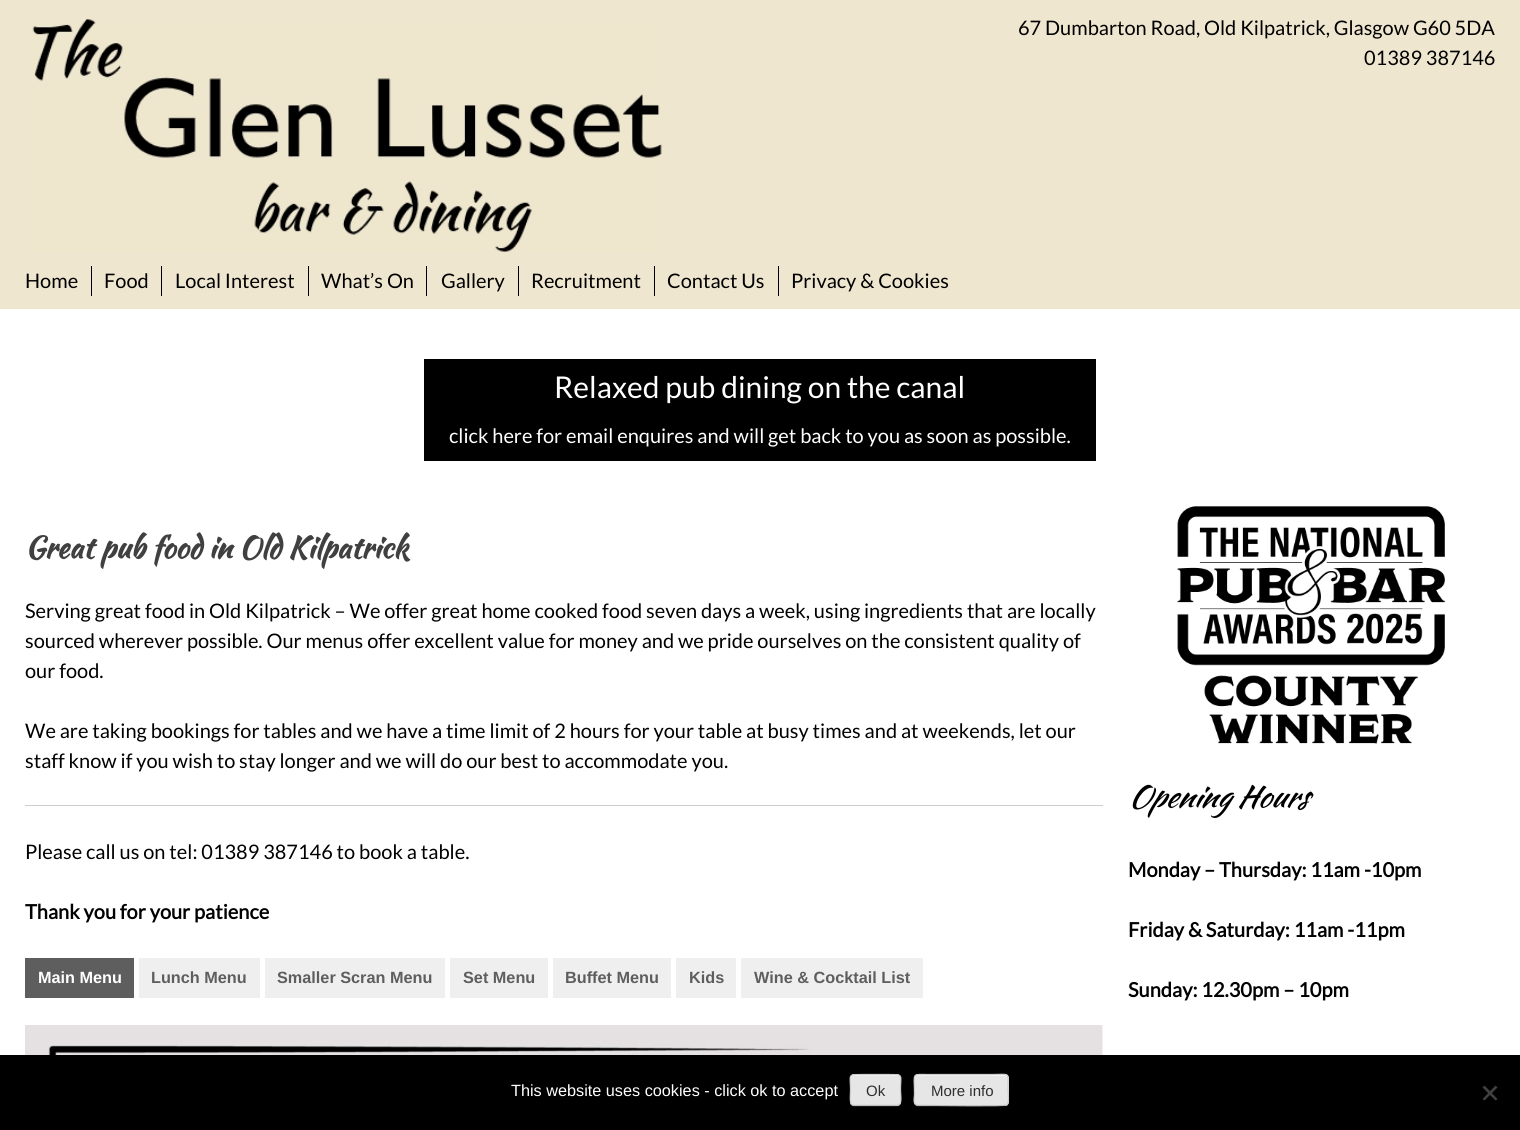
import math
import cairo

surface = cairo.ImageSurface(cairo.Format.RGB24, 1520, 1130)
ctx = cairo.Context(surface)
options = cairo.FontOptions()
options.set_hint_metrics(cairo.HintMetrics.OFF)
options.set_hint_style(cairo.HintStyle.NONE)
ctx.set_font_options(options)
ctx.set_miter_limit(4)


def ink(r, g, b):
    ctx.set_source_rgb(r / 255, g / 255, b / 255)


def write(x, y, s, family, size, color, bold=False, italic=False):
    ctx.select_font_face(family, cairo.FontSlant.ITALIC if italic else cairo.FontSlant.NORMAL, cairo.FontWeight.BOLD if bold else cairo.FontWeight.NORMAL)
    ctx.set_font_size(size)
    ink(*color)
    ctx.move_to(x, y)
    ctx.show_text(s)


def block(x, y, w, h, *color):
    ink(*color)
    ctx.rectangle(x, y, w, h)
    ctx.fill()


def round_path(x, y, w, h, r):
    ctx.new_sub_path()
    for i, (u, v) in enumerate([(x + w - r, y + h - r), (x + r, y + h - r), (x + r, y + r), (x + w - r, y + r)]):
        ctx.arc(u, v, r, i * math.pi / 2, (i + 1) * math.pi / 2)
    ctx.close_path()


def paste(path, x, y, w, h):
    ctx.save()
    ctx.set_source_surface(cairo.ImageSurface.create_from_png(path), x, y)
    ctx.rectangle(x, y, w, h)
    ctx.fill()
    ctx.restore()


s1 = dict(family="Lato", size=20, color=(0, 0, 0))
s2 = dict(family="Lato", size=30, color=(255, 255, 255))
s3 = dict(family="Lato", size=20, color=(255, 255, 255))
s4 = dict(family="Kaushan Script", size=30, color=(64, 64, 64), bold=True)
s5 = dict(family="Lato", size=20, color=(0, 0, 0), bold=True)
s6 = dict(family="Liberation Sans", size=16.25, color=(255, 255, 255), bold=True)
s7 = dict(family="Liberation Sans", size=16.25, color=(94, 94, 94), bold=True)
s8 = dict(family="Kaushan Script", size=30, color=(0, 0, 0), italic=True)
s9 = dict(family="Liberation Sans", size=16.25, color=(255, 255, 255))
s10 = dict(family="Liberation Sans", size=15, color=(46, 46, 46))

ink(255, 255, 255)
ctx.paint()
block(0, 0, 1520, 309, 238, 230, 207)
paste("pic1.png", 32, 19, 630, 233)
write(1018, 35, "67 Dumbarton Road, Old Kilpatrick, Glasgow G60 5DA", **s1)
write(1364, 65, "01389 387146", **s1)
write(25, 288, "Home", **s1)
block(91, 266, 1, 30, 0, 0, 0)
write(104, 288, "Food", **s1)
block(161, 266, 1, 30, 0, 0, 0)
write(175, 288, "Local Interest", **s1)
block(308, 266, 1, 30, 0, 0, 0)
write(321, 288, "What’s On", **s1)
block(426, 266, 1, 30, 0, 0, 0)
write(441, 288, "Gallery", **s1)
block(518, 266, 1, 30, 0, 0, 0)
write(531, 288, "Recruitment", **s1)
block(654, 266, 1, 30, 0, 0, 0)
write(667, 288, "Contact Us", **s1)
block(778, 266, 1, 30, 0, 0, 0)
write(791, 288, "Privacy & Cookies", **s1)
block(424, 359, 672, 102, 0, 0, 0)
write(554, 398, "Relaxed pub dining on the canal", **s2)
write(449, 443, "click here for email enquires and will get back to you as soon as possible.", **s3)
write(25, 558, "Great pub food in Old Kilpatrick", **s4)
write(25, 618, "Serving great food in Old Kilpatrick – We offer great home cooked food seven days a week, using ingredients that are locally", **s1)
write(25, 648, "sourced wherever possible. Our menus offer excellent value for money and we pride ourselves on the consistent quality of", **s1)
write(25, 678, "our food.", **s1)
write(25, 738, "We are taking bookings for tables and we have a time limit of 2 hours for your table at busy times and at weekends, let our", **s1)
write(25, 768, "staff know if you wish to stay longer and we will do our best to accommodate you.", **s1)
block(25, 805, 1078, 1, 204, 204, 204)
write(25, 859, "Please call us on tel: 01389 387146 to book a table.", **s1)
write(25, 919, "Thank you for your patience", **s5)
block(25, 958, 109, 40, 94, 94, 94)
write(38, 983, "Main Menu", **s6)
block(139, 958, 121, 40, 239, 239, 239)
write(151, 983, "Lunch Menu", **s7)
block(265, 958, 180, 40, 239, 239, 239)
write(277, 983, "Smaller Scran Menu", **s7)
block(450, 958, 98, 40, 239, 239, 239)
write(463, 983, "Set Menu", **s7)
block(553, 958, 118, 40, 239, 239, 239)
write(565, 983, "Buffet Menu", **s7)
block(676, 958, 60, 40, 239, 239, 239)
write(689, 983, "Kids", **s7)
block(741, 958, 182, 40, 239, 239, 239)
write(754, 983, "Wine & Cocktail List", **s7)
paste("pic2.png", 25, 1025, 1078, 30)
paste("pic3.png", 1177, 506, 268, 238)
write(1128, 807, "Opening Hours", **s8)
write(1128, 877, "Monday – Thursday: 11am -10pm", **s5)
write(1128, 937, "Friday & Saturday: 11am -11pm", **s5)
write(1128, 997, "Sunday: 12.30pm – 10pm", **s5)
block(0, 1055, 1520, 75, 0, 0, 0)
write(511, 1096, "This website uses cookies - click ok to accept", **s9)
ink(230, 230, 230)
round_path(850, 1074, 51, 32, 4)
ctx.fill()
ink(243, 243, 243)
ctx.new_path()
ctx.move_to(854, 1076)
ctx.line_to(898, 1076)
ctx.curve_to(899, 1076, 900, 1077, 900, 1079)
ctx.curve_to(900, 1073, 895, 1075, 890, 1075)
ctx.line_to(861, 1075)
ctx.curve_to(856, 1075, 851, 1073, 851, 1079)
ctx.curve_to(851, 1077, 852, 1076, 854, 1076)
ctx.close_path()
ctx.fill()
ctx.new_path()
ctx.move_to(899.5, 1104.5)
ctx.line_to(898, 1105.5)
ctx.line_to(853.5, 1105.5)
ctx.line_to(851.5, 1104.5)
ink(187, 187, 187)
ctx.set_line_width(1.2)
ctx.stroke()
ctx.new_path()
ctx.move_to(851.5, 1104.5)
ctx.curve_to(849.5, 1102.5, 850.5, 1093, 850.5, 1090)
ctx.curve_to(850.5, 1075, 847, 1074.5, 861, 1074.5)
ctx.line_to(890, 1074.5)
ctx.curve_to(904, 1074.5, 900.5, 1075, 900.5, 1090)
ctx.curve_to(900.5, 1093, 902, 1102.5, 899.5, 1104.5)
ink(204, 204, 204)
ctx.stroke()
write(866, 1096, "Ok", **s10)
ink(230, 230, 230)
round_path(914, 1074, 95, 32, 4)
ctx.fill()
ink(243, 243, 243)
ctx.new_path()
ctx.move_to(918, 1076)
ctx.line_to(1005, 1076)
ctx.curve_to(1006, 1076, 1008, 1077, 1008, 1079)
ctx.curve_to(1008, 1071, 996, 1075, 991, 1075)
ctx.line_to(932, 1075)
ctx.curve_to(927, 1075, 915, 1071, 915, 1079)
ctx.curve_to(915, 1077, 916, 1076, 918, 1076)
ctx.close_path()
ctx.fill()
ctx.new_path()
ctx.move_to(1007, 1104.5)
ctx.line_to(1007, 1105)
ctx.curve_to(1005, 1106.5, 940, 1105.5, 932, 1105.5)
ctx.line_to(917.5, 1105.5)
ctx.line_to(915.5, 1104.5)
ink(187, 187, 187)
ctx.stroke()
ctx.new_path()
ctx.move_to(915.5, 1104.5)
ctx.curve_to(913, 1102.5, 914.5, 1096.5, 914.5, 1094)
ctx.curve_to(914.5, 1071.5, 910, 1074.5, 932, 1074.5)
ctx.line_to(990.5, 1074.5)
ctx.curve_to(1011, 1074.5, 1008, 1071, 1008, 1090)
ctx.curve_to(1008, 1093, 1009.5, 1102.5, 1007, 1104.5)
ink(204, 204, 204)
ctx.stroke()
write(931, 1096, "More info", **s10)
ink(64, 64, 64)
ctx.new_path()
ctx.move_to(1495.5, 1085.5)
ctx.line_to(1497.5, 1087.5)
ctx.line_to(1484.5, 1100.5)
ctx.line_to(1482.5, 1099)
ctx.close_path()
ctx.fill()
ctx.new_path()
ctx.move_to(1482.5, 1087.5)
ctx.line_to(1484.5, 1085.5)
ctx.line_to(1497.5, 1099)
ctx.line_to(1495.5, 1100.5)
ctx.close_path()
ctx.fill()
surface.write_to_png("screenshot.png")
